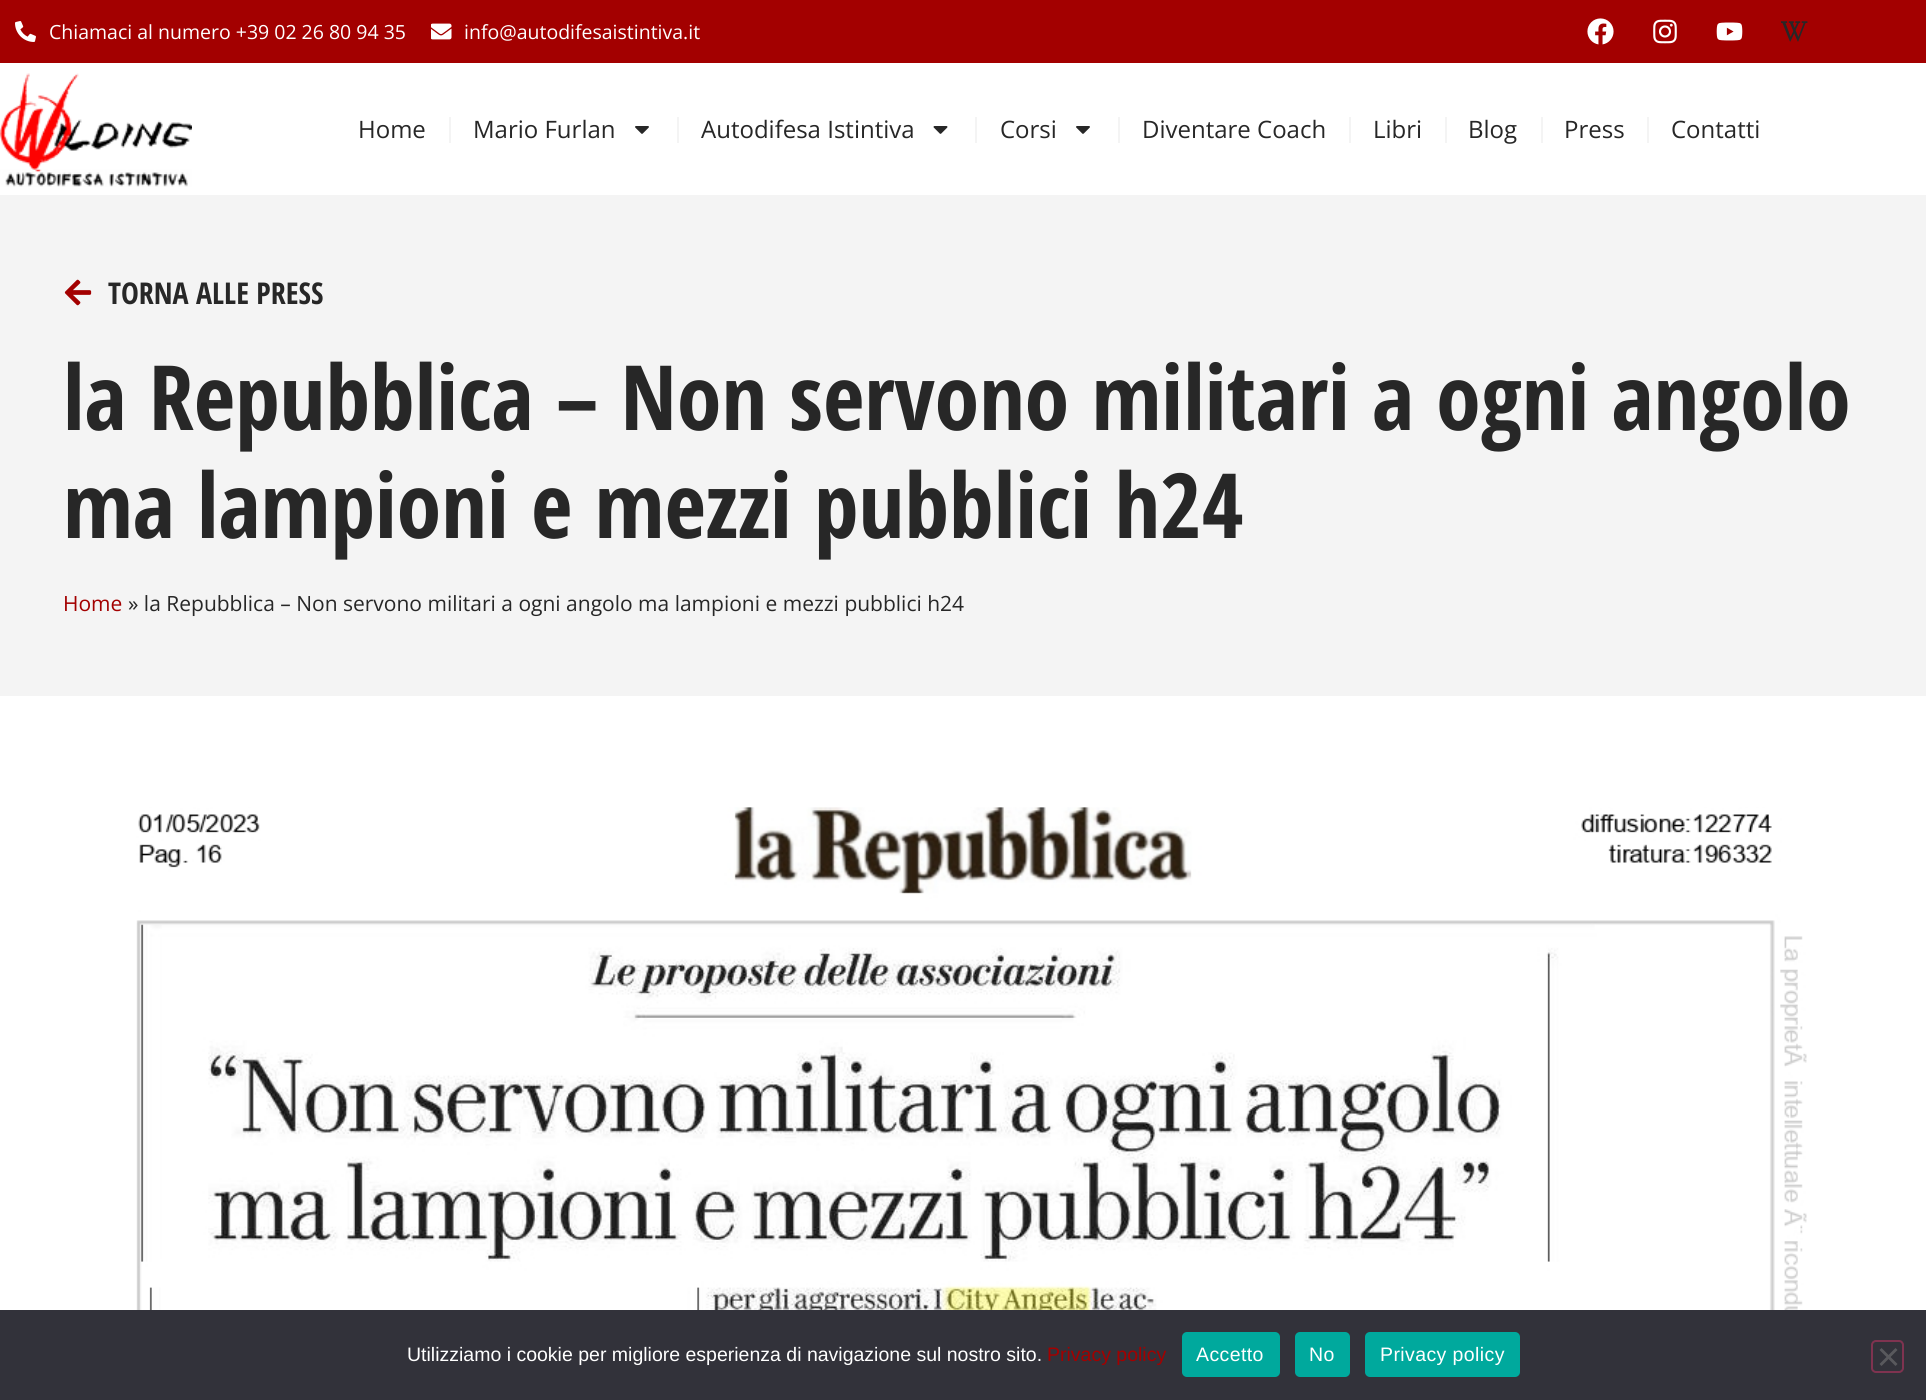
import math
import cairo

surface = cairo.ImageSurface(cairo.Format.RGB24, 1926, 1400)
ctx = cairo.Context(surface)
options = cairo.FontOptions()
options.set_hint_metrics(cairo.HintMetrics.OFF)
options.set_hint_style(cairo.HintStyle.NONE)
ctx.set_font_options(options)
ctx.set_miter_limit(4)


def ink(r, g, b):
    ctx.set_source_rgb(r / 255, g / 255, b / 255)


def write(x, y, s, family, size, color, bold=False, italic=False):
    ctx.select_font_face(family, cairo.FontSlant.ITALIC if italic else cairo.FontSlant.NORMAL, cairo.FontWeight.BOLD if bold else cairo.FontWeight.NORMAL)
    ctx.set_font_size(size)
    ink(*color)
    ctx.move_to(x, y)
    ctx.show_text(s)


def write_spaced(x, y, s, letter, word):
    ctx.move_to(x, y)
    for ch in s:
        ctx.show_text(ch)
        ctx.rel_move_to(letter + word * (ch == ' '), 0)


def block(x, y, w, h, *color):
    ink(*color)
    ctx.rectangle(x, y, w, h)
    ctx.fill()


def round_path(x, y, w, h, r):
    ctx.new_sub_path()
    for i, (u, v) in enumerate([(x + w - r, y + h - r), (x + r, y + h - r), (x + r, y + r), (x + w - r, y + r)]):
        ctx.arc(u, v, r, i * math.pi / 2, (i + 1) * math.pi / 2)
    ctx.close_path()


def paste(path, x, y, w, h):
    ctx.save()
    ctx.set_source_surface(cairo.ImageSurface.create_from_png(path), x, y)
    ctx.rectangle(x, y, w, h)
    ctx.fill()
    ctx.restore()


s1 = dict(family="Open Sans", size=19.5, color=(255, 255, 255))
s2 = dict(family="Open Sans", size=24, color=(39, 39, 39))
s3 = dict(family="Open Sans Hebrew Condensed", size=30, color=(39, 39, 39), bold=True)
s4 = dict(family="Open Sans Hebrew Condensed", size=90, color=(39, 39, 39), bold=True)
s5 = dict(family="Open Sans", size=21, color=(163, 0, 0))
s6 = dict(family="Open Sans", size=21, color=(39, 39, 39))
s7 = dict(family="Liberation Sans", size=19.5, color=(255, 255, 255))
s8 = dict(family="Liberation Sans", size=19.5, color=(163, 0, 0))

ink(255, 255, 255)
ctx.paint()
block(0, 0, 1926, 63, 163, 0, 0)
paste("pic1.png", 15, 21, 21, 21)
write(49, 39, "Chiamaci al numero +39 02 26 80 94 35", **s1)
paste("pic2.png", 431, 23, 21, 17)
write(464, 39, "info@autodifesaistintiva.it", **s1)
paste("pic3.png", 1587, 18, 27, 27)
paste("pic4.png", 1653, 19, 24, 25)
paste("pic5.png", 1716, 22, 27, 19)
paste("pic6.png", 1781, 21, 27, 21)
block(0, 195, 1926, 501, 244, 244, 244)
paste("pic7.png", 0, 73, 192, 114)
write(358, 138, "Home", **s2)
block(449, 117, 2, 26, 244, 244, 244)
write(473, 138, "Mario Furlan", **s2)
paste("pic8.png", 635, 126, 14, 8)
block(677, 117, 2, 26, 244, 244, 244)
write(701, 138, "Autodifesa Istintiva", **s2)
paste("pic9.png", 933, 126, 15, 8)
block(975, 117, 2, 26, 244, 244, 244)
write(1000, 138, "Corsi", **s2)
paste("pic8.png", 1076, 126, 14, 8)
block(1118, 117, 2, 26, 244, 244, 244)
write(1142, 138, "Diventare Coach", **s2)
block(1349, 117, 2, 26, 244, 244, 244)
write(1373, 138, "Libri", **s2)
block(1445, 117, 2, 26, 244, 244, 244)
write(1468, 138, "Blog", **s2)
block(1541, 117, 2, 26, 244, 244, 244)
write(1564, 138, "Press", **s2)
block(1647, 117, 2, 26, 244, 244, 244)
write(1671, 138, "Contatti", **s2)
paste("pic10.png", 64, 279, 28, 27)
write(108, 304, "TORNA ALLE PRESS", **s3)
write(63, 430, "la Repubblica – Non servono militari a ogni angolo", **s4)
write(63, 538, "ma lampioni e mezzi pubblici h24", **s4)
write(63, 611, "Home", **s5)
write(128, 611, "» la Repubblica – Non servono militari a ogni angolo ma lampioni e mezzi pubblici h24", **s6)
paste("pic11.png", 136, 807, 1671, 503)
block(0, 1310, 1926, 90, 50, 50, 58)
write(407, 1361, "Utilizziamo i cookie per migliore esperienza di navigazione sul nostro sito.", **s7)
write(1047, 1361, "Privacy policy", **s8)
ink(0, 169, 157)
round_path(1182, 1332, 98, 45, 5)
ctx.fill()
ink(255, 255, 255)
write_spaced(1196, 1361, "Accetto", 0.4, 0)
ink(0, 169, 157)
round_path(1295, 1332, 55, 45, 5)
ctx.fill()
ink(255, 255, 255)
write_spaced(1309, 1361, "No", 0.4, 0)
ink(0, 169, 157)
round_path(1365, 1332, 155, 45, 5)
ctx.fill()
ink(255, 255, 255)
write_spaced(1380, 1361, "Privacy policy", 0.4, 0)
round_path(1872, 1341, 31, 31, 4)
ink(127, 51, 80)
ctx.stroke()
ink(89, 89, 93)
ctx.new_path()
ctx.move_to(1895.5, 1348)
ctx.line_to(1897.5, 1350)
ctx.line_to(1881.5, 1366)
ctx.line_to(1879.5, 1364)
ctx.close_path()
ctx.fill()
ctx.new_path()
ctx.move_to(1879.5, 1350)
ctx.line_to(1881.5, 1348)
ctx.line_to(1897.5, 1364)
ctx.line_to(1895.5, 1366)
ctx.close_path()
ctx.fill()
surface.write_to_png("screenshot.png")
